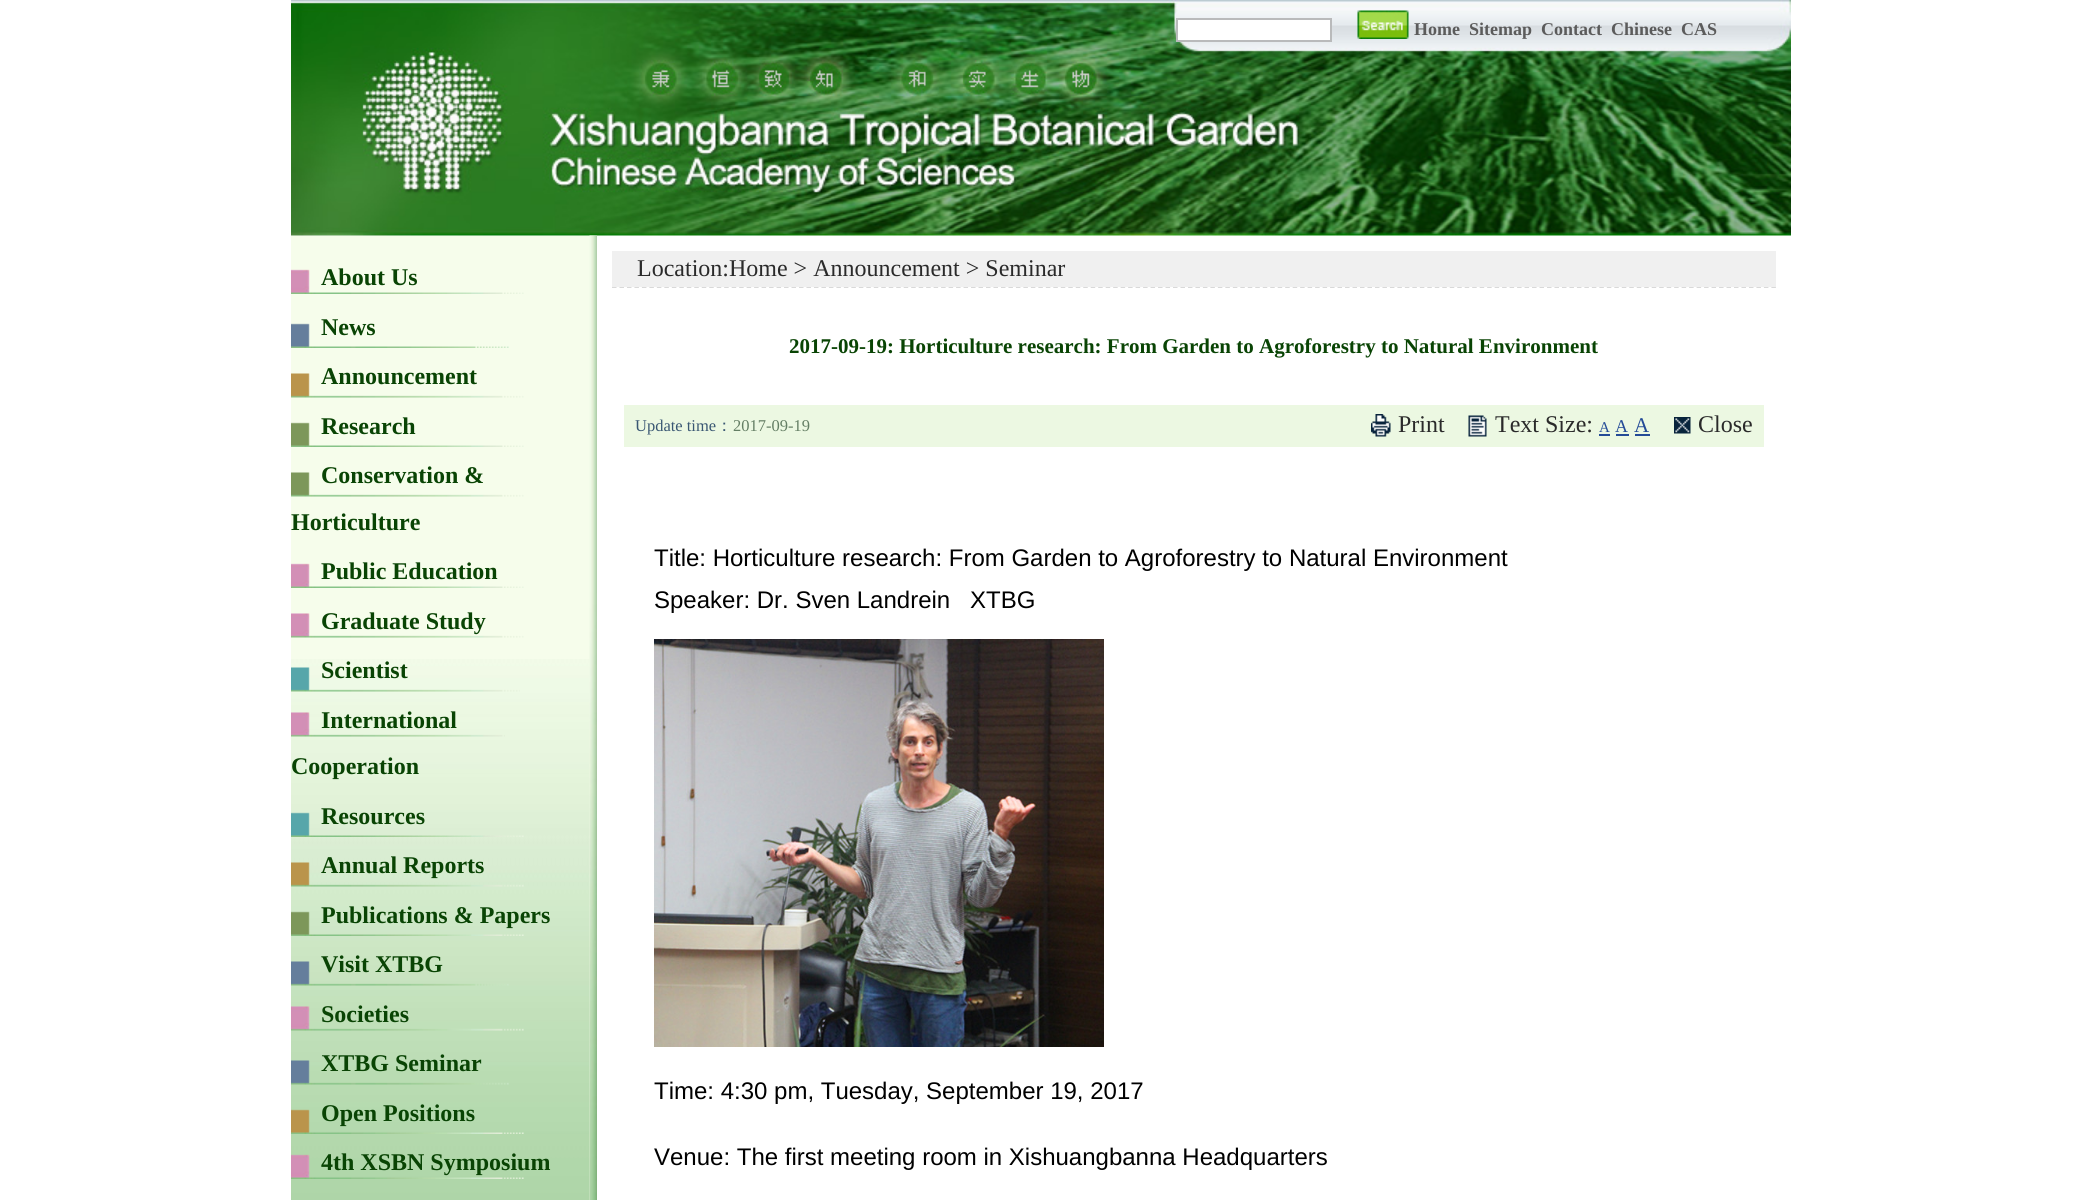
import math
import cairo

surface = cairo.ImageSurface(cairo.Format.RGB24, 2081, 1200)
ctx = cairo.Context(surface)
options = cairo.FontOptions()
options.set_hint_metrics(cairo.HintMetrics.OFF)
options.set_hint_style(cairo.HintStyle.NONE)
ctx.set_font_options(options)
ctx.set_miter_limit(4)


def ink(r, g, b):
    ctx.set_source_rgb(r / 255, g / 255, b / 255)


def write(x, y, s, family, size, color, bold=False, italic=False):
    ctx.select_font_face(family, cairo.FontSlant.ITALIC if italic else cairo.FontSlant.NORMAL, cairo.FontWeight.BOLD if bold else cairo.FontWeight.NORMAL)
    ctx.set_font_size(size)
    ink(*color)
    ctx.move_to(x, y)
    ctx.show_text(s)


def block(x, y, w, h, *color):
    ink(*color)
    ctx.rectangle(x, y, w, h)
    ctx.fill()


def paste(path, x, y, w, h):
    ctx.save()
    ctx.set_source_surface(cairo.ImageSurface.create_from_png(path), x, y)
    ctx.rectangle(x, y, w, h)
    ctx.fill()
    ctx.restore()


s1 = dict(family="Liberation Serif", size=18, color=(91, 91, 91), bold=True)
s2 = dict(family="Liberation Serif", size=24, color=(9, 68, 4), bold=True)
s3 = dict(family="Liberation Serif", size=24, color=(42, 42, 42))
s4 = dict(family="Liberation Serif", size=21, color=(9, 68, 4), bold=True)
s5 = dict(family="Liberation Serif", size=16.5, color=(58, 87, 115))
s6 = dict(family="WenQuanYi Zen Hei Medium", size=16.5, color=(58, 87, 115))
s7 = dict(family="Liberation Serif", size=16.5, color=(100, 126, 100))
s8 = dict(family="Liberation Serif", size=15, color=(36, 75, 151))
s9 = dict(family="Liberation Serif", size=18, color=(36, 75, 151))
s10 = dict(family="Liberation Serif", size=21, color=(36, 75, 151))
s11 = dict(family="Liberation Sans", size=24, color=(0, 0, 0))

ink(255, 255, 255)
ctx.paint()
paste("pic1.png", 291, 0, 1500, 236)
ink(255, 255, 255)
ctx.rectangle(1177, 19, 154, 22)
ctx.fill_preserve()
ink(185, 186, 187)
ctx.stroke()
paste("pic2.png", 1357, 10, 52, 29)
write(1414, 35, "Home", **s1)
write(1469, 35, "Sitemap", **s1)
write(1541, 35, "Contact", **s1)
write(1611, 35, "Chinese", **s1)
write(1681, 35, "CAS", **s1)
block(291, 236, 299, 964, 246, 253, 235)
paste("pic3.png", 291, 659, 299, 541)
paste("pic4.png", 291, 269, 233, 25)
write(321, 285, "About Us", **s2)
paste("pic5.png", 291, 323, 218, 25)
write(321, 335, "News", **s2)
paste("pic6.png", 291, 373, 233, 25)
write(321, 384, "Announcement", **s2)
paste("pic7.png", 291, 422, 233, 25)
write(321, 434, "Research", **s2)
paste("pic8.png", 291, 472, 233, 25)
write(321, 483, "Conservation &", **s2)
write(291, 530, "Horticulture", **s2)
paste("pic4.png", 291, 563, 233, 25)
write(321, 579, "Public Education", **s2)
paste("pic9.png", 291, 613, 233, 25)
write(321, 629, "Graduate Study", **s2)
paste("pic10.png", 291, 667, 229, 25)
write(321, 678, "Scientist", **s2)
paste("pic11.png", 291, 712, 214, 25)
write(321, 728, "International", **s2)
write(291, 774, "Cooperation", **s2)
paste("pic12.png", 291, 812, 233, 25)
write(321, 824, "Resources", **s2)
paste("pic13.png", 291, 862, 233, 25)
write(321, 873, "Annual Reports", **s2)
paste("pic14.png", 291, 911, 233, 25)
write(321, 923, "Publications & Papers", **s2)
paste("pic15.png", 291, 961, 218, 25)
write(321, 972, "Visit XTBG", **s2)
paste("pic16.png", 291, 1006, 233, 25)
write(321, 1022, "Societies", **s2)
paste("pic17.png", 291, 1060, 218, 25)
write(321, 1071, "XTBG Seminar", **s2)
paste("pic18.png", 291, 1109, 233, 25)
write(321, 1121, "Open Positions", **s2)
paste("pic19.png", 291, 1154, 233, 25)
write(321, 1170, "4th XSBN Symposium", **s2)
paste("pic20.png", 589, 235, 8, 965)
ctx.new_path()
ctx.move_to(612, 287)
ctx.line_to(1776, 287)
ink(204, 204, 204)
ctx.set_line_width(1.5)
ctx.set_dash([4.5, 2.98])
ctx.stroke()
block(612, 251, 1164, 36, 240, 240, 240)
write(637, 276, "Location:Home > Announcement > Seminar", **s3)
write(789, 353, "2017-09-19: Horticulture research: From Garden to Agroforestry to Natural Environment", **s4)
block(624, 405, 1140, 42, 236, 248, 226)
write(635, 431, "Update time", **s5)
write(716, 431, "：", **s6)
write(733, 431, "2017-09-19", **s7)
paste("pic21.png", 1371, 414, 20, 23)
write(1398, 432, "Print", **s3)
paste("pic22.png", 1468, 415, 19, 22)
write(1495, 432, "Text Size:", **s3)
write(1599, 432, "A", **s8)
block(1599, 434, 11, 2, 36, 75, 151)
write(1615, 432, "A", **s9)
block(1616, 434, 13, 2, 36, 75, 151)
write(1634, 432, "A", **s10)
block(1635, 434, 15, 2, 36, 75, 151)
paste("pic23.png", 1674, 417, 17, 17)
write(1698, 432, "Close", **s3)
write(654, 566, "Title: Horticulture research: From Garden to Agroforestry to Natural Environment", **s11)
write(654, 608, "Speaker: Dr. Sven Landrein", **s11)
write(970, 608, "XTBG", **s11)
paste("pic24.png", 654, 639, 450, 408)
write(654, 1099, "Time: 4:30 pm, Tuesday, September 19, 2017", **s11)
write(654, 1165, "Venue: The first meeting room in Xishuangbanna Headquarters", **s11)
surface.write_to_png("screenshot.png")
